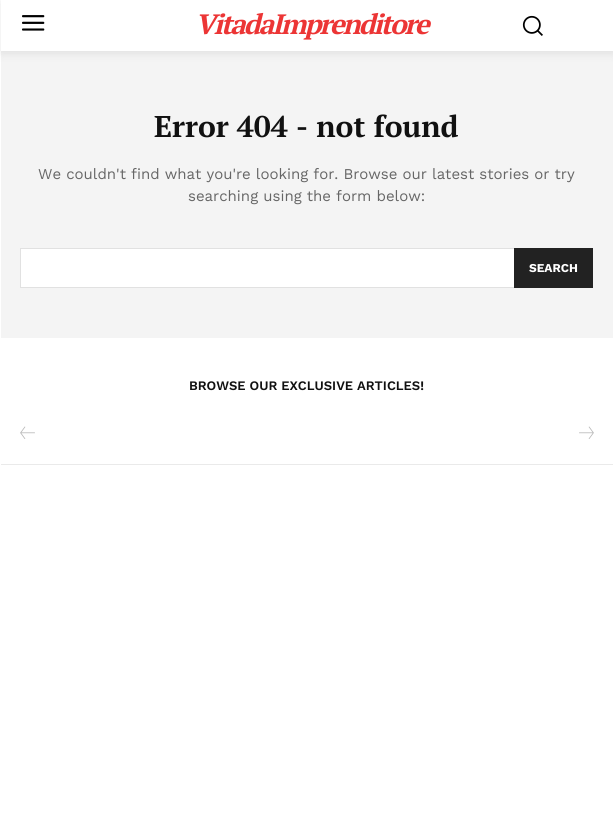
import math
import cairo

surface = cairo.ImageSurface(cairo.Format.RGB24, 613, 823)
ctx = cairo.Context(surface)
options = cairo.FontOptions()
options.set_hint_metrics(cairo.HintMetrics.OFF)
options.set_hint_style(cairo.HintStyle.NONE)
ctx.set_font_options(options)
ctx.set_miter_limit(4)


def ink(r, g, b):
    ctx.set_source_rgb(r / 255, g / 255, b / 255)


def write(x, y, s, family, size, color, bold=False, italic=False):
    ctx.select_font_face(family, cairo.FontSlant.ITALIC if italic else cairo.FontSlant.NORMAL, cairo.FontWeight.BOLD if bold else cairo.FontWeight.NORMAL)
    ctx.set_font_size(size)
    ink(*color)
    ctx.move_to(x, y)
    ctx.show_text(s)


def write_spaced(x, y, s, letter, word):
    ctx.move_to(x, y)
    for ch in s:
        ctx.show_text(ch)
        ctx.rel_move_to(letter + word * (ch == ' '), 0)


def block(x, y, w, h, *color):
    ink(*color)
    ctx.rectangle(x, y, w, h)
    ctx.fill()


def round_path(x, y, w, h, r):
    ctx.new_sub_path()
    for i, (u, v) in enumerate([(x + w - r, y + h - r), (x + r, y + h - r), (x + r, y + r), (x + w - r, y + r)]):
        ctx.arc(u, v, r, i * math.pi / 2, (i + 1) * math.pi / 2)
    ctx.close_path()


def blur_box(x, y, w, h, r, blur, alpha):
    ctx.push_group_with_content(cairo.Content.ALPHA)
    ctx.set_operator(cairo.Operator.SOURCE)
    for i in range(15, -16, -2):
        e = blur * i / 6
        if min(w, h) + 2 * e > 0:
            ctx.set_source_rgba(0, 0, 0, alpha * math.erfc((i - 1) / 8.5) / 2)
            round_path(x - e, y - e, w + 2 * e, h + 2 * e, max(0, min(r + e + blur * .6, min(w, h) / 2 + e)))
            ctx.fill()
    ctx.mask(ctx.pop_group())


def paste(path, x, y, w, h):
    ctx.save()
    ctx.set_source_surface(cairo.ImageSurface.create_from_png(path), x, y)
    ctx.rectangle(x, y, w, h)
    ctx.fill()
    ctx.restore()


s1 = dict(family="PT Serif", size=30, color=(17, 17, 17), bold=True)
s2 = dict(family="Work Sans", size=15, color=(102, 102, 102))
s3 = dict(family="Work Sans", size=12, color=(255, 255, 255), bold=True)
s4 = dict(family="Work Sans SemiBold", size=13, color=(17, 17, 17))

ink(255, 255, 255)
ctx.paint()
paste("pic1.png", 22, 15, 23, 16)
paste("pic2.png", 522, 15, 21, 21)
block(1, 51, 612, 287, 244, 244, 244)
ctx.save()
ctx.set_fill_rule(cairo.FillRule.EVEN_ODD)
ctx.new_path()
ctx.move_to(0, 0)
ctx.line_to(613, 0)
ctx.line_to(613, 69)
ctx.line_to(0, 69)
ctx.close_path()
ctx.move_to(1, 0)
ctx.line_to(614, 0)
ctx.line_to(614, 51)
ctx.line_to(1, 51)
ctx.close_path()
ctx.clip()
ink(0, 0, 0)
blur_box(1, 2, 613, 51, 0, 5, 0.09)
ctx.restore()
ctx.select_font_face("PT Serif", cairo.FontSlant.ITALIC, cairo.FontWeight.BOLD)
ctx.set_font_size(28)
ink(236, 53, 53)
write_spaced(195, 34, "VitadaImprenditore", -2, 0)
write(154, 137, "Error 404 - not found", **s1)
write(38, 179, "We couldn't find what you're looking for. Browse our latest stories or try", **s2)
write(188, 201, "searching using the form below:", **s2)
block(21, 249, 493, 38, 255, 255, 255)
ctx.rectangle(20.5, 248.5, 572, 39)
ink(225, 225, 225)
ctx.set_line_width(1)
ctx.stroke()
block(514, 248, 79, 40, 34, 34, 34)
write(529, 272, "SEARCH", **s3)
write(189, 390, "BROWSE OUR EXCLUSIVE ARTICLES!", **s4)
paste("pic3.png", 20, 426, 15, 13)
paste("pic4.png", 579, 426, 15, 13)
block(1, 464, 612, 1, 234, 234, 234)
surface.write_to_png("screenshot.png")
